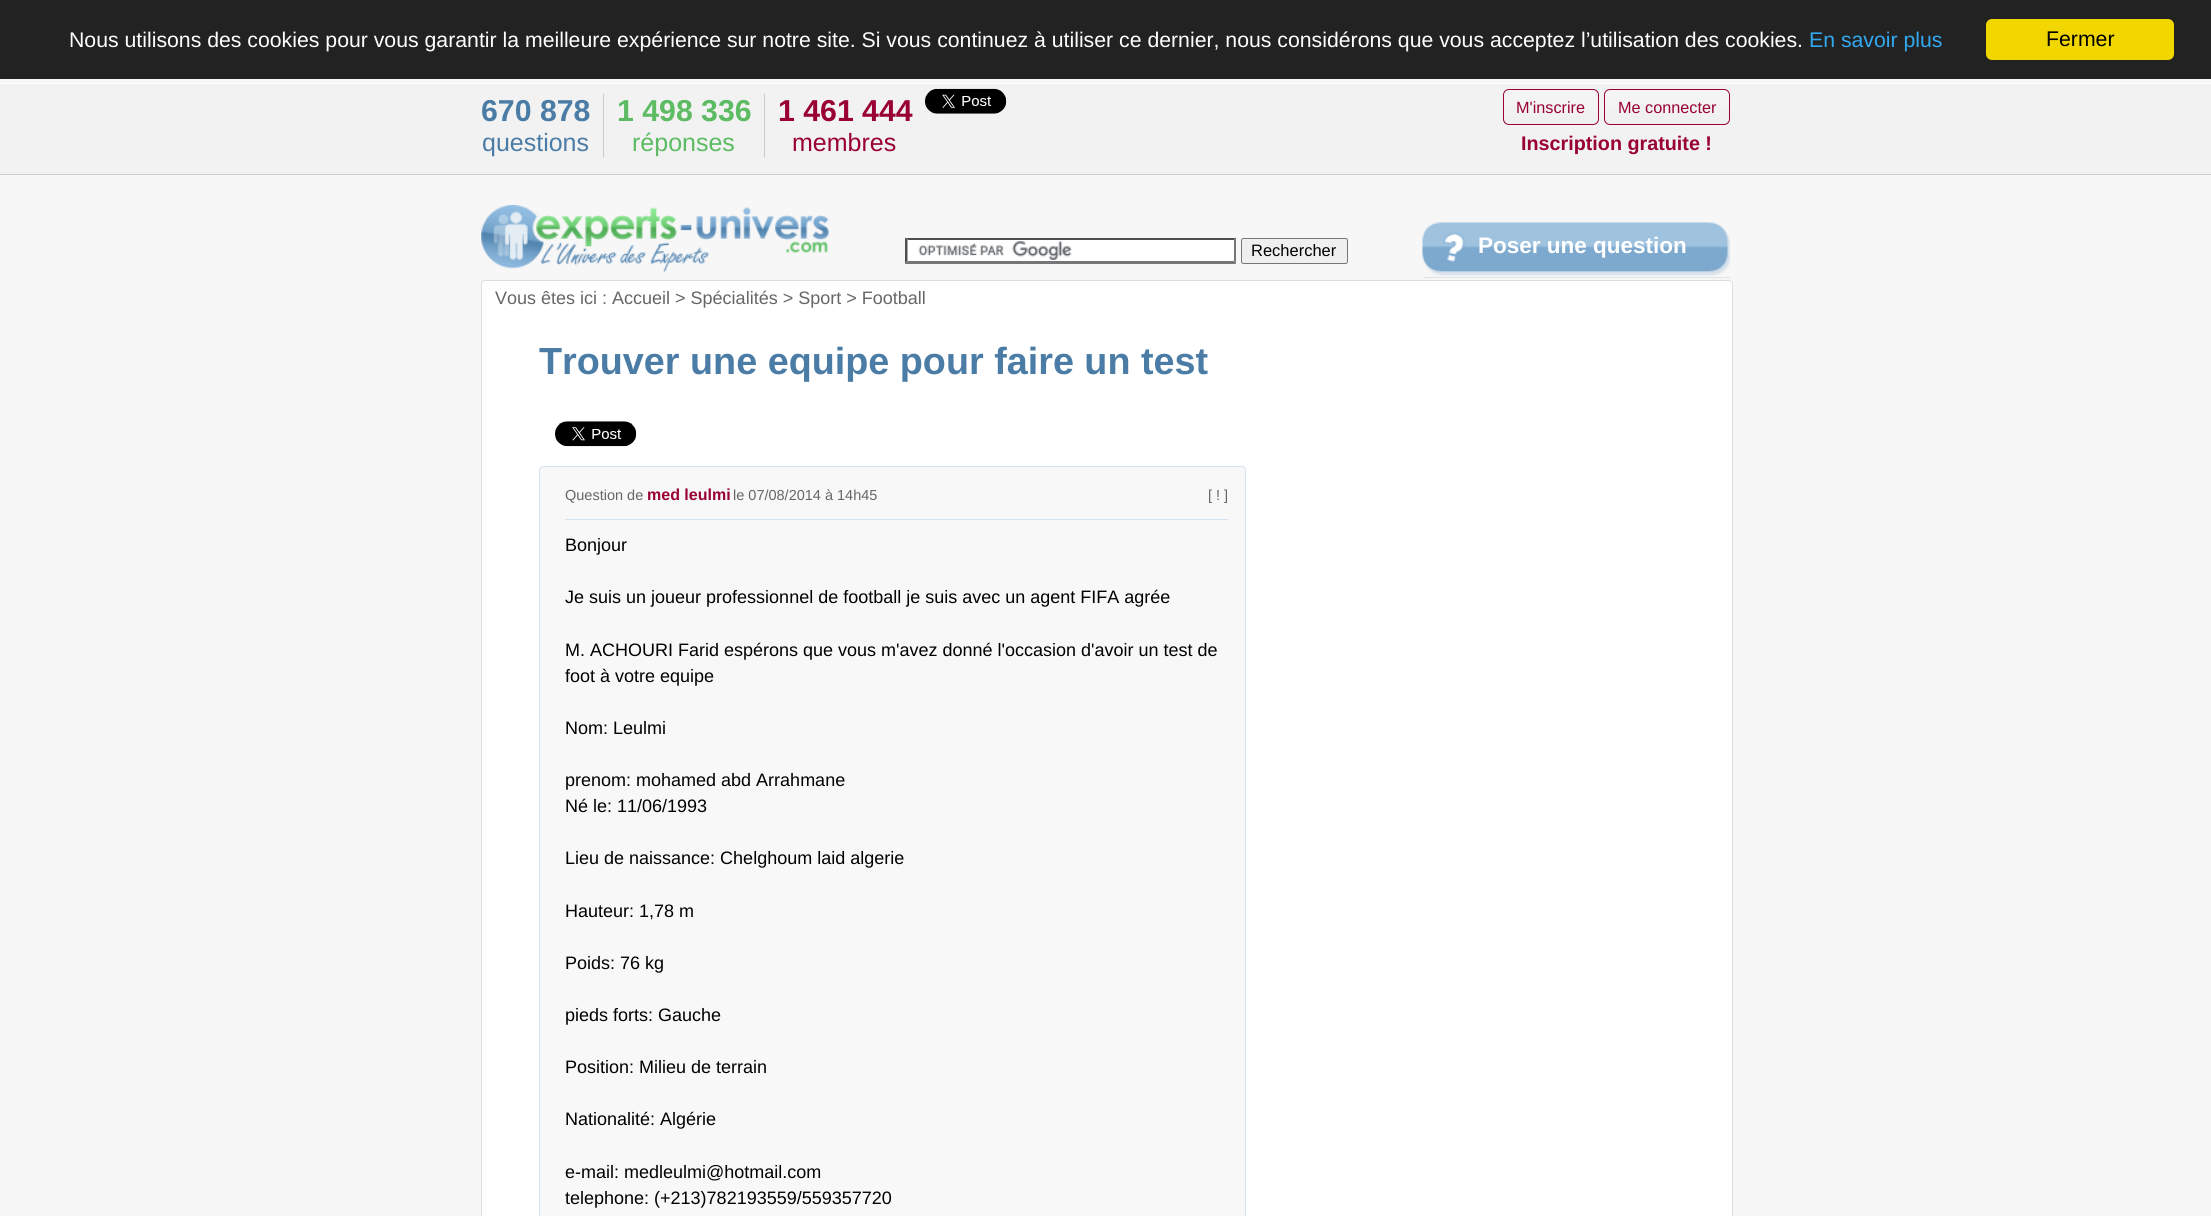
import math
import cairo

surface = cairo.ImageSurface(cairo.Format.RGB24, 2211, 1216)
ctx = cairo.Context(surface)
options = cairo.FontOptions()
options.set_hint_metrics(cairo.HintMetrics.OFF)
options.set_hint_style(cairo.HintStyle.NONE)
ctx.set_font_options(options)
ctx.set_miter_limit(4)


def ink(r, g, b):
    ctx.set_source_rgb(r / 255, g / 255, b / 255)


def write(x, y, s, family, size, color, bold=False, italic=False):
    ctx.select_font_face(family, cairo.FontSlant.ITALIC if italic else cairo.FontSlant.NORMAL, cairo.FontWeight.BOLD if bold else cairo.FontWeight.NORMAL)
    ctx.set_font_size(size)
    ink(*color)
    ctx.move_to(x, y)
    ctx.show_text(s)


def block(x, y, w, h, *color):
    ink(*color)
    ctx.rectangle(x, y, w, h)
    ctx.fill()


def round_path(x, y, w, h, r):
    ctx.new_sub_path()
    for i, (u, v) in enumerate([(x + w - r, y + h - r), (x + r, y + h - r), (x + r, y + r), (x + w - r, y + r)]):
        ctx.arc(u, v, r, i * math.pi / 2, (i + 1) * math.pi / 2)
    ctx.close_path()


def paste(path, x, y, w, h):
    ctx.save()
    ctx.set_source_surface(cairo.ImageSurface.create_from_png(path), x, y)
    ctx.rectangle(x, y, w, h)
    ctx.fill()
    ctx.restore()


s1 = dict(family="Liberation Sans", size=21.25, color=(255, 255, 255))
s2 = dict(family="Liberation Sans", size=21.25, color=(49, 168, 240))
s3 = dict(family="Liberation Sans", size=21.25, color=(0, 0, 0))
s4 = dict(family="Liberation Sans", size=30.25, color=(74, 124, 166), bold=True)
s5 = dict(family="Liberation Sans", size=25, color=(74, 124, 166))
s6 = dict(family="Liberation Sans", size=30.25, color=(92, 187, 99), bold=True)
s7 = dict(family="Liberation Sans", size=25, color=(92, 187, 99))
s8 = dict(family="Liberation Sans", size=30.25, color=(153, 0, 51), bold=True)
s9 = dict(family="Liberation Sans", size=25, color=(153, 0, 51))
s10 = dict(family="Liberation Sans", size=16.25, color=(153, 0, 51))
s11 = dict(family="Liberation Sans", size=19.75, color=(153, 0, 51), bold=True)
s12 = dict(family="Liberation Sans", size=16.5, color=(0, 0, 0))
s13 = dict(family="Liberation Sans", size=22.5, color=(255, 255, 255), bold=True)
s14 = dict(family="Liberation Sans", size=18, color=(102, 102, 102))
s15 = dict(family="Liberation Sans", size=37.75, color=(74, 124, 166), bold=True)
s16 = dict(family="Liberation Sans", size=14.5, color=(102, 102, 102))
s17 = dict(family="Liberation Sans", size=16, color=(153, 0, 51), bold=True)
s18 = dict(family="Liberation Sans", size=18, color=(0, 0, 0))

ink(247, 247, 247)
ctx.paint()
block(0, 0, 2211, 79, 34, 34, 34)
write(69, 47, "Nous utilisons des cookies pour vous garantir la meilleure expérience sur notre site. Si vous continuez à utiliser ce dernier, nous considérons que vous acceptez l’utilisation des cookies.", **s1)
write(1809, 47, "En savoir plus", **s2)
ink(241, 214, 0)
round_path(1986, 19, 188, 41, 6)
ctx.fill()
write(2046, 46, "Fermer", **s3)
block(0, 84, 2211, 90, 242, 242, 242)
block(0, 83, 2211, 1, 255, 255, 255)
block(0, 174, 2211, 1, 204, 204, 204)
write(481, 121, "670 878", **s4)
write(482, 151, "questions", **s5)
block(603, 94, 1, 64, 204, 204, 204)
write(617, 121, "1 498 336", **s6)
write(632, 151, "réponses", **s7)
block(764, 94, 1, 64, 204, 204, 204)
write(778, 121, "1 461 444", **s8)
write(792, 151, "membres", **s9)
paste("pic1.png", 925, 88, 82, 26)
ctx.save()
round_path(1503, 89, 96, 36, 6)
ctx.clip()
gradient = cairo.LinearGradient(1504, 90, 1504, 124)
gradient.add_color_stop_rgba(0.05, 0.961, 0.961, 0.961, 1)
gradient.add_color_stop_rgba(1, 0.937, 0.937, 0.937, 1)
ctx.set_source(gradient)
ctx.rectangle(1503, 90, 96, 34)
ctx.fill()
ctx.restore()
round_path(1503.5, 89.5, 95, 35, 5.5)
ctx.set_line_width(1)
ctx.stroke()
write(1516, 113, "M'inscrire", **s10)
ctx.save()
round_path(1604, 89, 126, 36, 6)
ctx.clip()
gradient = cairo.LinearGradient(1605, 90, 1605, 124)
gradient.add_color_stop_rgba(0.05, 0.961, 0.961, 0.961, 1)
gradient.add_color_stop_rgba(1, 0.937, 0.937, 0.937, 1)
ctx.set_source(gradient)
ctx.rectangle(1604, 90, 126, 34)
ctx.fill()
ctx.restore()
round_path(1604.5, 89.5, 125, 35, 5.5)
ctx.stroke()
write(1618, 113, "Me connecter", **s10)
write(1521, 150, "Inscription gratuite !", **s11)
paste("pic2.png", 481, 205, 348, 68)
block(905, 238, 331, 26, 255, 255, 255)
paste("pic3.png", 918, 241, 154, 19)
ink(79, 79, 79)
ctx.new_path()
ctx.move_to(905, 238)
ctx.line_to(1236, 238)
ctx.line_to(1234, 240)
ctx.line_to(908, 240)
ctx.close_path()
ctx.fill()
ink(118, 118, 118)
ctx.new_path()
ctx.move_to(1236, 237.5)
ctx.line_to(1236, 264)
ctx.line_to(1234, 261)
ctx.line_to(1234, 240)
ctx.close_path()
ctx.fill()
ctx.new_path()
ctx.move_to(1236, 264)
ctx.line_to(905, 264)
ctx.line_to(908, 261)
ctx.line_to(1234, 261)
ctx.close_path()
ctx.fill()
ink(79, 79, 79)
ctx.new_path()
ctx.move_to(905, 264)
ctx.line_to(905, 237.5)
ctx.line_to(907.5, 240)
ctx.line_to(907.5, 261)
ctx.close_path()
ctx.fill()
ink(239, 239, 239)
round_path(1241.5, 238.5, 106, 25, 2)
ctx.fill_preserve()
ink(118, 118, 118)
ctx.stroke()
write(1251, 256, "Rechercher", **s12)
block(1423, 277, 307, 1, 204, 204, 204)
paste("pic4.png", 1422, 222, 308, 56)
write(1478, 253, "Poser une question", **s13)
round_path(481.5, 280.5, 1251, 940, 3.5)
ctx.fill_preserve()
ink(221, 221, 221)
ctx.stroke()
write(495, 304, "Vous êtes ici : Accueil > Spécialités > Sport > Football", **s14)
write(539, 374, "Trouver une equipe pour faire un test", **s15)
paste("pic5.png", 555, 421, 82, 26)
ink(248, 248, 248)
round_path(539.5, 466.5, 706, 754, 3.5)
ctx.fill_preserve()
ink(211, 227, 241)
ctx.stroke()
write(565, 500, "Question de", **s16)
write(647, 500, "med leulmi", **s17)
write(733, 500, "le 07/08/2014 à 14h45", **s16)
write(1208, 500, "[ ! ]", **s16)
block(565, 519, 663, 1, 211, 227, 241)
write(565, 551, "Bonjour", **s18)
write(565, 603, "Je suis un joueur professionnel de football je suis avec un agent FIFA agrée", **s18)
write(565, 656, "M. ACHOURI Farid espérons que vous m'avez donné l'occasion d'avoir un test de", **s18)
write(565, 682, "foot à votre equipe", **s18)
write(565, 734, "Nom: Leulmi", **s18)
write(565, 786, "prenom: mohamed abd Arrahmane", **s18)
write(565, 812, "Né le: 11/06/1993", **s18)
write(565, 864, "Lieu de naissance: Chelghoum laid algerie", **s18)
write(565, 917, "Hauteur: 1,78 m", **s18)
write(565, 969, "Poids: 76 kg", **s18)
write(565, 1021, "pieds forts: Gauche", **s18)
write(565, 1073, "Position: Milieu de terrain", **s18)
write(565, 1125, "Nationalité: Algérie", **s18)
write(565, 1178, "e-mail: medleulmi@hotmail.com", **s18)
write(565, 1204, "telephone: (+213)782193559/559357720", **s18)
surface.write_to_png("screenshot.png")
